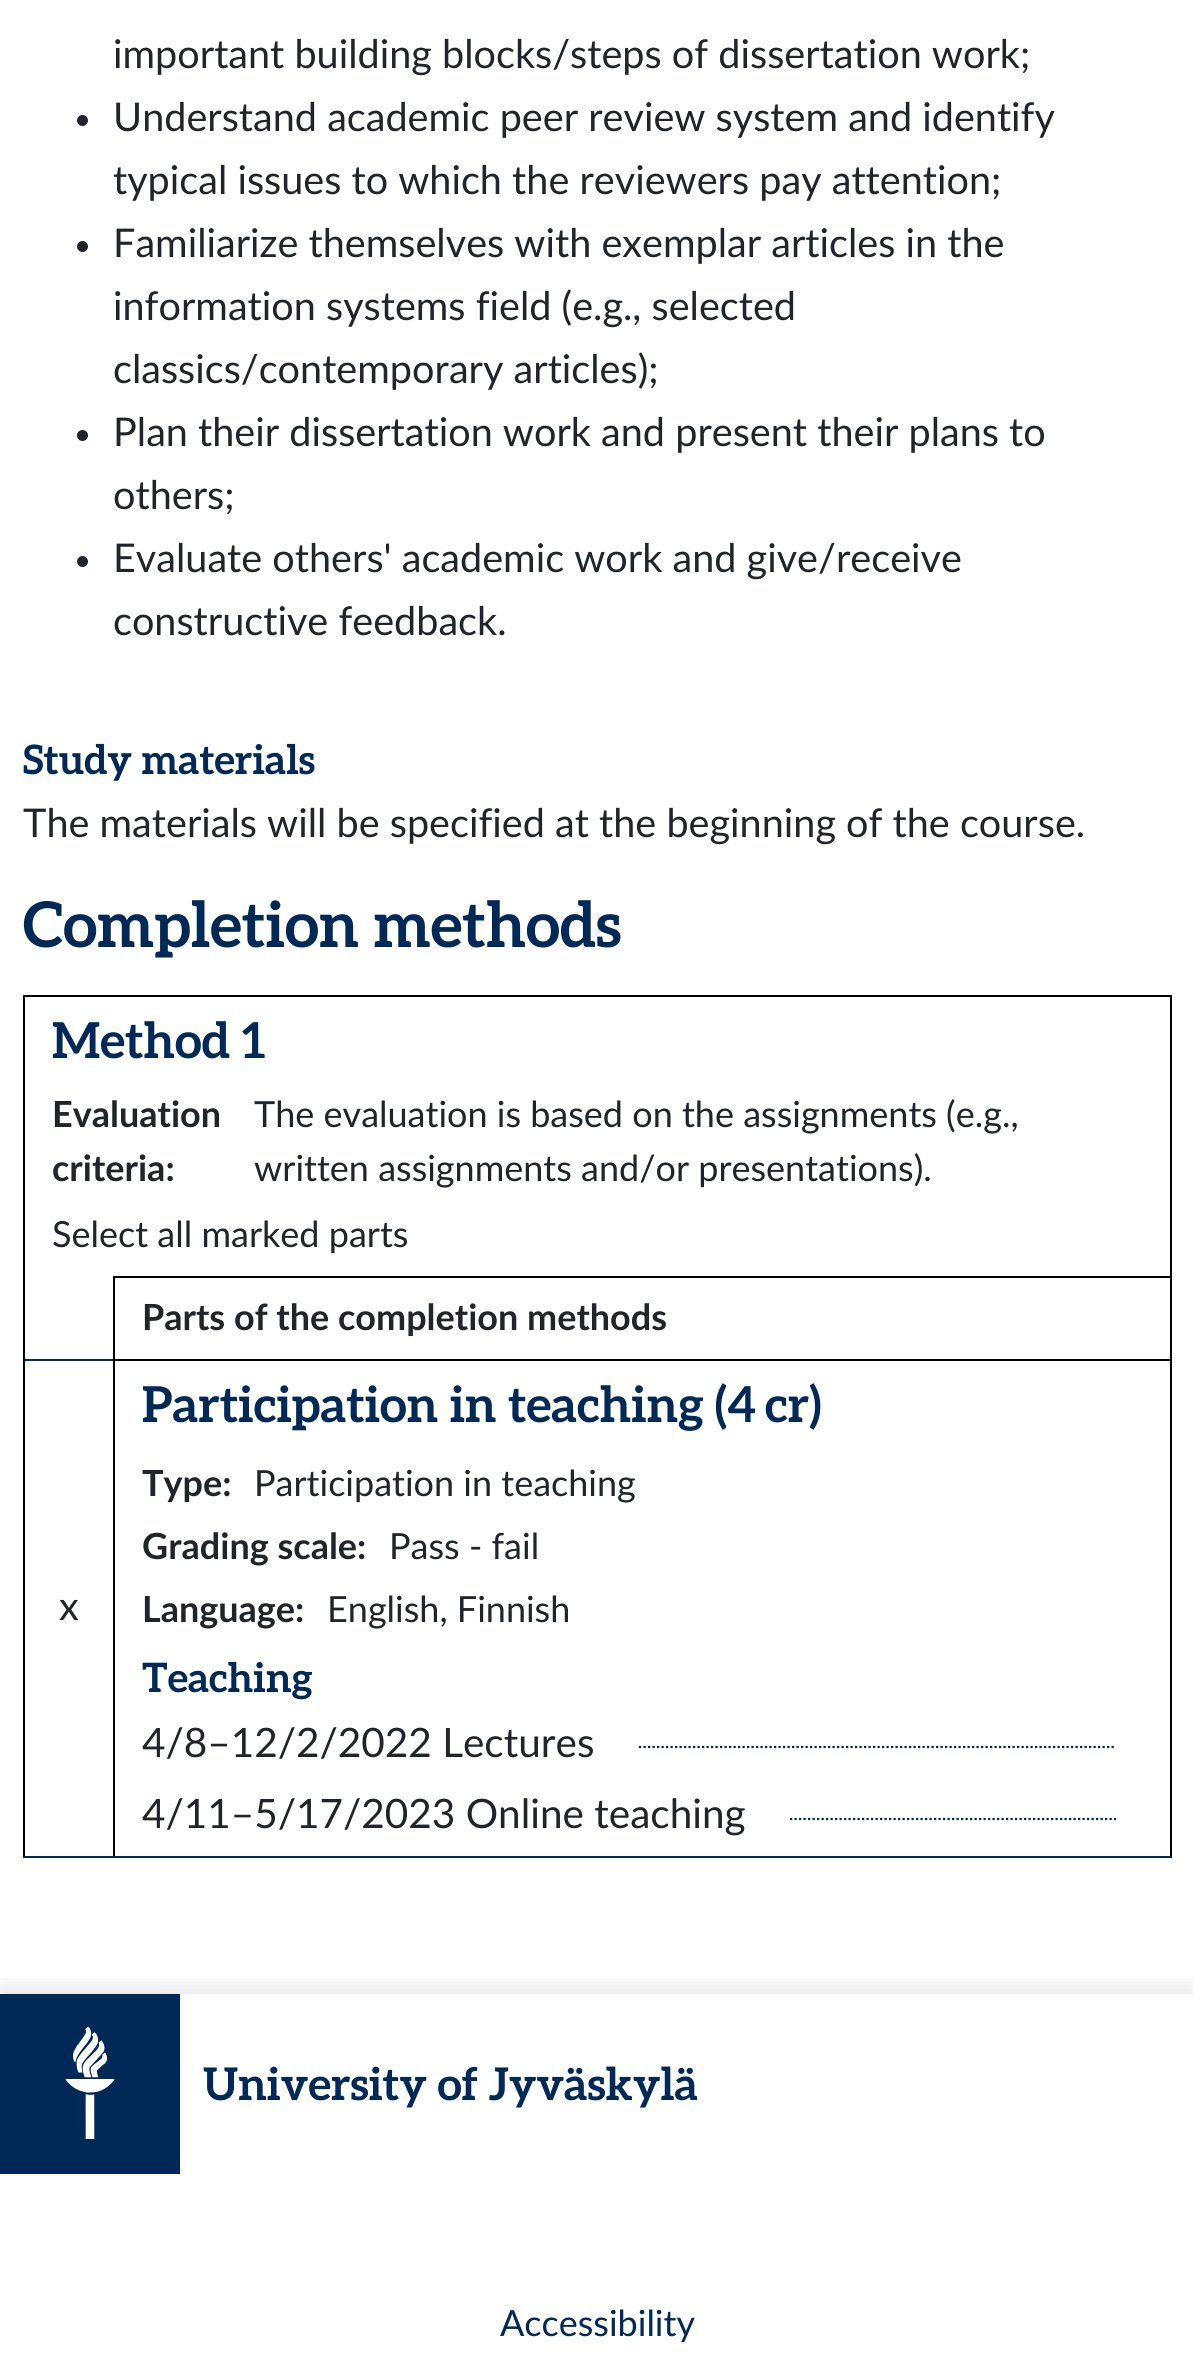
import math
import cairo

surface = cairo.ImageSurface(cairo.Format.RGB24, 1193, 2372)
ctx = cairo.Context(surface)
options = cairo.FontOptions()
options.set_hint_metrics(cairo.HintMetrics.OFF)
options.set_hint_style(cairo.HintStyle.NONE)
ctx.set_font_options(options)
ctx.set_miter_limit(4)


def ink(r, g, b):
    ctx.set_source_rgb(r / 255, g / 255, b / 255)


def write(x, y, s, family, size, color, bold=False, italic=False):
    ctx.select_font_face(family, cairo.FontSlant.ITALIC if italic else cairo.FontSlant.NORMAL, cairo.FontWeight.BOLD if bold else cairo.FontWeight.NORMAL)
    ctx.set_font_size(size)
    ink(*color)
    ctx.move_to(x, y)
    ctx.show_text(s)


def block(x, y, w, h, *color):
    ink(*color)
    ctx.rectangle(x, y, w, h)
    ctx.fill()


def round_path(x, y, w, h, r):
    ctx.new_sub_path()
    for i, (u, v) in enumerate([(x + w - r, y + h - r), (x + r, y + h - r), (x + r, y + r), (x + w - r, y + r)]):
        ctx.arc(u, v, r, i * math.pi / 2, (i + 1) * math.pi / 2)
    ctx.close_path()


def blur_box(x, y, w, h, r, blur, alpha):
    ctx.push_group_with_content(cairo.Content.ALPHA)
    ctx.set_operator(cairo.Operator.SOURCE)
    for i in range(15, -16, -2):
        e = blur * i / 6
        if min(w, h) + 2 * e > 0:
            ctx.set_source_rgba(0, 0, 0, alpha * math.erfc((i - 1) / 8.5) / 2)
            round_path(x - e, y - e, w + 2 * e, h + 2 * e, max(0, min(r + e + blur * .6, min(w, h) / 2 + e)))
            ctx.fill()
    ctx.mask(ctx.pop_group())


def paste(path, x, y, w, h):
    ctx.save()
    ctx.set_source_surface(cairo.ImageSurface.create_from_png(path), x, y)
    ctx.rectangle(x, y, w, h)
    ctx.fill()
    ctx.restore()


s1 = dict(family="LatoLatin", size=39.6, color=(33, 37, 41))
s2 = dict(family="Aleo", size=40.5, color=(0, 41, 87), bold=True)
s3 = dict(family="Aleo", size=63, color=(0, 41, 87), bold=True)
s4 = dict(family="Aleo", size=49.5, color=(0, 41, 87), bold=True)
s5 = dict(family="LatoLatin", size=36, color=(33, 37, 41), bold=True)
s6 = dict(family="LatoLatin", size=36, color=(33, 37, 41))
s7 = dict(family="LatoLatin", size=40.5, color=(33, 37, 41))
s8 = dict(family="Aleo", size=45, color=(0, 41, 87), bold=True)
s9 = dict(family="LatoLatin", size=36, color=(0, 41, 87))

ink(255, 255, 255)
ctx.paint()
write(113, 68, "important building blocks/steps of dissertation work;", **s1)
ctx.new_path()
ctx.arc(82.5, 120.5, 5.5, 0, 2 * math.pi)
ctx.fill()
write(113, 131, "Understand academic peer review system and identify", **s1)
write(113, 194, "typical issues to which the reviewers pay attention;", **s1)
ctx.new_path()
ctx.arc(82.5, 246.5, 5.5, 0, 2 * math.pi)
ctx.fill()
write(113, 257, "Familiarize themselves with exemplar articles in the", **s1)
write(113, 320, "information systems field (e.g., selected", **s1)
write(113, 383, "classics/contemporary articles);", **s1)
ctx.new_path()
ctx.arc(82.5, 435.5, 5.5, 0, 2 * math.pi)
ctx.fill()
write(113, 446, "Plan their dissertation work and present their plans to", **s1)
write(113, 509, "others;", **s1)
ctx.new_path()
ctx.arc(82.5, 561.5, 5.5, 0, 2 * math.pi)
ctx.fill()
write(113, 572, "Evaluate others' academic work and give/receive", **s1)
write(113, 635, "constructive feedback.", **s1)
write(23, 774, "Study materials", **s2)
write(23, 837, "The materials will be specified at the beginning of the course.", **s1)
write(23, 947, "Completion methods", **s3)
block(23, 995, 1149, 2, 0, 0, 0)
block(1170, 995, 2, 281, 0, 0, 0)
block(23, 995, 2, 364, 0, 0, 0)
write(52, 1058, "Method 1", **s4)
write(52, 1127, "Evaluation", **s5)
write(52, 1181, "criteria:", **s5)
write(254, 1127, "The evaluation is based on the assignments (e.g.,", **s6)
write(254, 1181, "written assignments and/or presentations).", **s6)
write(52, 1247, "Select all marked parts", **s6)
block(113, 1276, 1059, 2, 0, 0, 0)
block(1170, 1276, 2, 83, 0, 0, 0)
block(113, 1276, 2, 83, 0, 0, 0)
write(142, 1330, "Parts of the completion methods", **s5)
block(23, 1359, 90, 2, 0, 41, 87)
block(23, 1359, 2, 497, 0, 0, 0)
write(59, 1620, "x", **s1)
block(113, 1359, 1059, 2, 0, 0, 0)
block(1170, 1359, 2, 497, 0, 0, 0)
block(113, 1359, 2, 497, 0, 0, 0)
write(142, 1422, "Participation in teaching (4", **s4)
write(765, 1422, "cr)", **s4)
write(142, 1496, "Type:", **s5)
write(254, 1496, "Participation in teaching", **s6)
write(142, 1559, "Grading scale:", **s5)
write(389, 1559, "Pass - fail", **s6)
write(142, 1622, "Language:", **s5)
write(327, 1622, "English, Finnish", **s6)
write(142, 1692, "Teaching", **s2)
write(142, 1757, "4/8–12/2/2022 Lectures", **s7)
ctx.new_path()
ctx.move_to(639, 1747)
ctx.line_to(1116, 1747)
ink(0, 41, 87)
ctx.set_line_width(2.2)
ctx.set_dash([2.25, 2.25])
ctx.stroke()
write(142, 1828, "4/11–5/17/2023 Online teaching", **s7)
ctx.new_path()
ctx.move_to(790, 1819)
ctx.line_to(1116, 1819)
ink(0, 41, 87)
ctx.stroke()
block(23, 1856, 1149, 2, 0, 41, 87)
ctx.save()
ctx.rectangle(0, 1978, 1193, 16)
ctx.clip()
ink(0, 0, 0)
blur_box(0, 1987, 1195, 380, 0, 11, 0.1)
ctx.restore()
block(0, 1994, 180, 180, 0, 41, 87)
paste("pic1.png", 65, 2027, 50, 112)
write(203, 2100, "University of Jyväskylä", **s8)
write(500, 2336, "Accessibility", **s9)
surface.write_to_png("screenshot.png")
